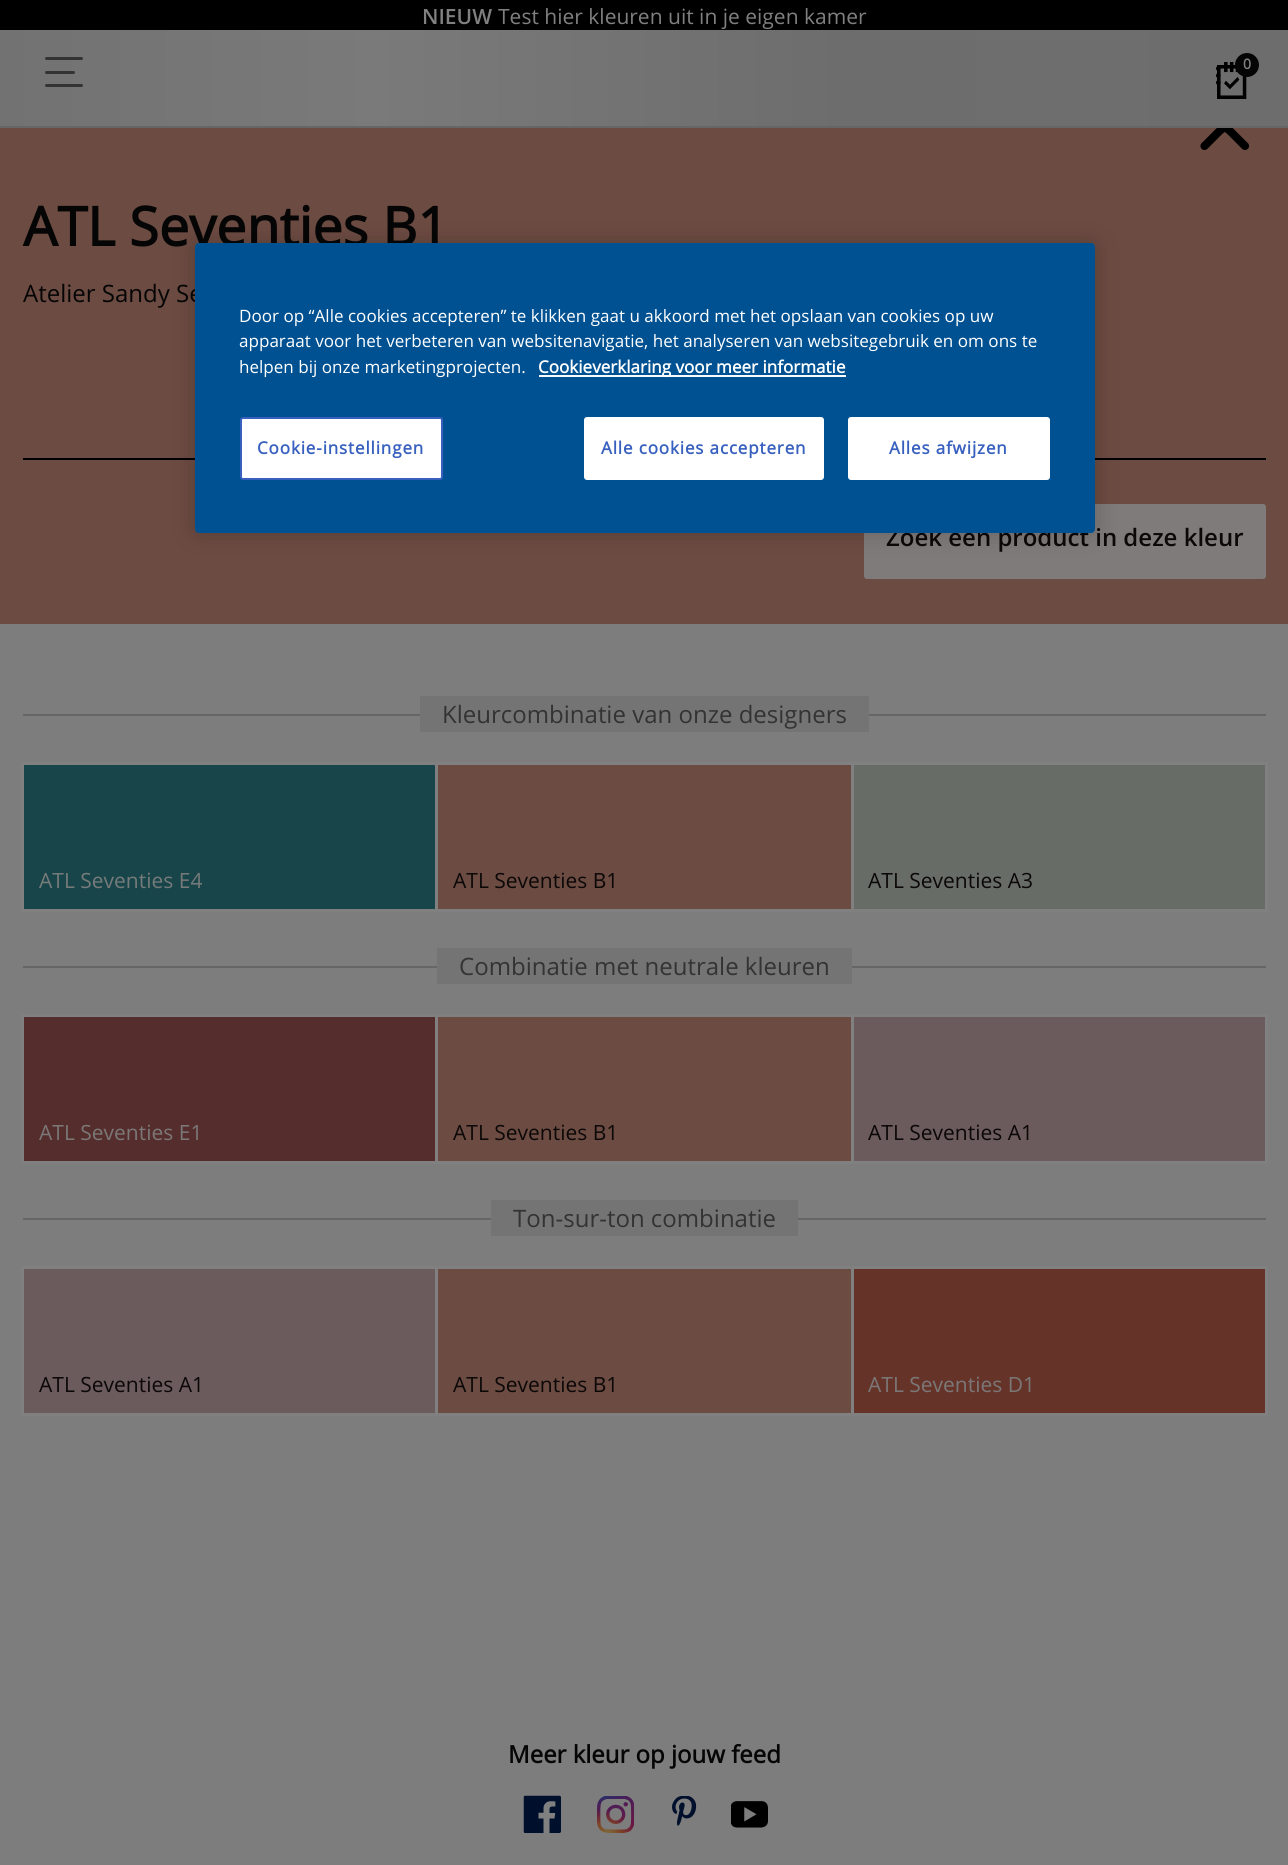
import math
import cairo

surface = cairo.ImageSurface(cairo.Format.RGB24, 1288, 1865)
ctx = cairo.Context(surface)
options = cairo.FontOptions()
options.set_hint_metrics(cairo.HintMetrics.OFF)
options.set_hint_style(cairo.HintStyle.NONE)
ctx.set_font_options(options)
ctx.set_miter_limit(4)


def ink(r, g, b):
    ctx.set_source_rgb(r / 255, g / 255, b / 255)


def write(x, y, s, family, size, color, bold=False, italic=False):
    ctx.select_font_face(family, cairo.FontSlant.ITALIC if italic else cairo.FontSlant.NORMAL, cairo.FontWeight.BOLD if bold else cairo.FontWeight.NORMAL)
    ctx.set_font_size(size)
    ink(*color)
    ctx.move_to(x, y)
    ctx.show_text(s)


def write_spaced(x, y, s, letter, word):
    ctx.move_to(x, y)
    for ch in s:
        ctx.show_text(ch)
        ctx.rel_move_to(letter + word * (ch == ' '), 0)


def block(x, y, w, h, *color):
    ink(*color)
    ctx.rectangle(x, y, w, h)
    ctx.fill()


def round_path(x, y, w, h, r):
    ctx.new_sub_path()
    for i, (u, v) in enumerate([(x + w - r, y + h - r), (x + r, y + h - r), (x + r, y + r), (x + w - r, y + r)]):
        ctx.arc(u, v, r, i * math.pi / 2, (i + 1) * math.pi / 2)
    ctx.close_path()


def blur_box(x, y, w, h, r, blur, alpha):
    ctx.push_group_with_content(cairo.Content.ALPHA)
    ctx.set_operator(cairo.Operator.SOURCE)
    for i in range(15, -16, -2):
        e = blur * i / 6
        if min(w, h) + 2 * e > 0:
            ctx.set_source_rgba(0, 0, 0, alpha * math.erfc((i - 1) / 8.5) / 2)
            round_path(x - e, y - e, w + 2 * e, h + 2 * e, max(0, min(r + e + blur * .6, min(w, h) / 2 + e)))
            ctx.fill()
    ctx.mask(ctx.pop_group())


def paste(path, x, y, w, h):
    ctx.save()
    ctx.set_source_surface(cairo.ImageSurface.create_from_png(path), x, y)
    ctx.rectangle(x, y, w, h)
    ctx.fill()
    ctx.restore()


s1 = dict(family="Open Sans SemiBold", size=21, color=(128, 128, 128))
s2 = dict(family="Open Sans", size=21, color=(128, 128, 128))
s3 = dict(family="Open Sans", size=14, color=(128, 128, 128), bold=True)
s4 = dict(family="Open Sans", size=54, color=(5, 5, 5), bold=True)
s5 = dict(family="Open Sans", size=24, color=(5, 5, 5))
s6 = dict(family="Open Sans SemiBold", size=24, color=(11, 8, 7))
s7 = dict(family="Open Sans", size=24, color=(51, 51, 51))
s8 = dict(family="Open Sans", size=21, color=(117, 122, 122))
s9 = dict(family="Open Sans", size=21, color=(11, 8, 7))
s10 = dict(family="Open Sans", size=21, color=(123, 119, 119))
s11 = dict(family="Open Sans", size=17.05, color=(255, 255, 255))
s12 = dict(family="Open Sans", size=17.05, color=(255, 255, 255), bold=True)
s13 = dict(family="Open Sans", size=24, color=(5, 5, 5), bold=True)

ink(126, 125, 125)
ctx.paint()
block(0, 0, 1288, 30, 0, 0, 0)
write(422, 24, "NIEUW", **s1)
write(498, 24, "Test hier kleuren uit in je eigen kamer", **s2)
block(0, 128, 1288, 496, 108, 75, 66)
ctx.new_path()
ctx.move_to(1245, 106)
ctx.line_to(1230.5, 120)
ctx.curve_to(1225, 125.5, 1224.5, 125.5, 1219, 120)
ctx.line_to(1204.5, 106)
ctx.move_to(1245, 146)
ctx.line_to(1230.5, 131.5)
ctx.curve_to(1225, 126.5, 1224.5, 126.5, 1219, 131.5)
ctx.line_to(1204.5, 146)
ink(0, 0, 0)
ctx.set_line_width(8.1)
ctx.set_line_cap(cairo.LineCap.ROUND)
ctx.stroke()
gradient = cairo.LinearGradient(0, 78, 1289, 78)
gradient.add_color_stop_rgba(0, 0.447, 0.447, 0.447, 1)
gradient.add_color_stop_rgba(0.29, 0.478, 0.478, 0.478, 1)
gradient.add_color_stop_rgba(0.66, 0.427, 0.427, 0.427, 1)
gradient.add_color_stop_rgba(0.82, 0.431, 0.431, 0.431, 1)
gradient.add_color_stop_rgba(1, 0.427, 0.427, 0.427, 1)
ctx.set_source(gradient)
ctx.rectangle(0, 30, 1288, 96)
ctx.fill()
block(0, 126, 1288, 2, 102, 102, 102)
ink(51, 51, 51)
round_path(45, 71, 30, 3, 1.5)
ctx.fill()
round_path(45, 57, 38, 3, 1.5)
ctx.fill()
round_path(45, 84, 38, 3, 1.5)
ctx.fill()
paste("pic1.png", 1215, 62, 32, 37)
ink(5, 5, 5)
ctx.arc(1247, 65, 12, 0, 2 * math.pi)
ctx.fill()
write(1243, 69, "0", **s3)
block(23, 458, 1243, 2, 0, 0, 0)
write(23, 246, "ATL Seventies B1", **s4)
write(23, 302, "Atelier Sandy Se", **s5)
ink(126, 123, 122)
round_path(864, 504, 402, 75, 3)
ctx.fill()
write(886, 546, "Zoek een product in deze kleur", **s6)
block(23, 714, 1243, 2, 102, 102, 102)
block(420, 696, 449, 36, 116, 116, 116)
write(442, 723, "Kleurcombinatie van onze designers", **s7)
ink(24, 69, 73)
ctx.rectangle(22.5, 763.5, 414, 147)
ctx.fill_preserve()
ink(128, 128, 128)
ctx.set_line_width(3)
ctx.set_line_cap(cairo.LineCap.BUTT)
ctx.stroke()
write(39, 888, "ATL Seventies E4", **s8)
ink(108, 75, 66)
ctx.rectangle(436.5, 763.5, 416, 147)
ctx.fill_preserve()
ink(128, 128, 128)
ctx.stroke()
write(453, 888, "ATL Seventies B1", **s9)
ink(103, 108, 103)
ctx.rectangle(852.5, 763.5, 414, 147)
ctx.fill_preserve()
ink(128, 128, 128)
ctx.stroke()
write(868, 888, "ATL Seventies A3", **s9)
block(23, 966, 1243, 2, 102, 102, 102)
block(437, 948, 415, 36, 116, 116, 116)
write(459, 975, "Combinatie met neutrale kleuren", **s7)
ink(84, 45, 44)
ctx.rectangle(22.5, 1015.5, 414, 147)
ctx.fill_preserve()
ink(128, 128, 128)
ctx.stroke()
write(39, 1140, "ATL Seventies E1", **s10)
ink(108, 75, 66)
ctx.rectangle(436.5, 1015.5, 416, 147)
ctx.fill_preserve()
ink(128, 128, 128)
ctx.stroke()
write(453, 1140, "ATL Seventies B1", **s9)
ink(107, 91, 92)
ctx.rectangle(852.5, 1015.5, 414, 147)
ctx.fill_preserve()
ink(128, 128, 128)
ctx.stroke()
write(868, 1140, "ATL Seventies A1", **s9)
block(23, 1218, 1243, 2, 102, 102, 102)
block(491, 1200, 307, 36, 116, 116, 116)
write(513, 1227, "Ton-sur-ton combinatie", **s7)
ink(107, 91, 92)
ctx.rectangle(22.5, 1267.5, 414, 147)
ctx.fill_preserve()
ink(128, 128, 128)
ctx.stroke()
write(39, 1392, "ATL Seventies A1", **s9)
ink(108, 75, 66)
ctx.rectangle(436.5, 1267.5, 416, 147)
ctx.fill_preserve()
ink(128, 128, 128)
ctx.stroke()
write(453, 1392, "ATL Seventies B1", **s9)
ink(102, 51, 41)
ctx.rectangle(852.5, 1267.5, 414, 147)
ctx.fill_preserve()
ink(128, 128, 128)
ctx.stroke()
write(868, 1392, "ATL Seventies D1", **s10)
ink(0, 0, 0)
blur_box(195, 243, 900, 290, 4, 13.5, 0.2)
ink(0, 81, 146)
round_path(195, 243, 900, 290, 4)
ctx.fill()
write(239, 322, "Door op “Alle cookies accepteren” te klikken gaat u akkoord met het opslaan van cookies op uw", **s11)
write(239, 347, "apparaat voor het verbeteren van websitenavigatie, het analyseren van websitegebruik en om ons te", **s11)
write(239, 373, "helpen bij onze marketingprojecten.", **s11)
block(539, 375, 307, 2, 250, 251, 255)
write(538, 373, "Cookieverklaring voor meer informatie", **s12)
round_path(241, 418, 201, 61, 2)
ctx.fill_preserve()
ink(56, 96, 190)
ctx.set_line_width(2)
ctx.stroke()
write_spaced(257, 454, "Cookie-instellingen", 0.85, 0)
ink(255, 255, 255)
round_path(585, 418, 238, 61, 2)
ctx.fill_preserve()
ctx.stroke()
ink(56, 96, 190)
write_spaced(601, 454, "Alle cookies accepteren", 0.85, 0)
ink(255, 255, 255)
round_path(849, 418, 200, 61, 2)
ctx.fill_preserve()
ctx.stroke()
ink(56, 96, 190)
write_spaced(889, 454, "Alles afwijzen", 0.85, 0)
write(508, 1763, "Meer kleur op jouw feed", **s13)
paste("pic2.png", 523, 1795, 38, 38)
paste("pic3.png", 597, 1796, 38, 37)
paste("pic4.png", 672, 1796, 25, 30)
paste("pic5.png", 731, 1801, 37, 27)
surface.write_to_png("screenshot.png")
